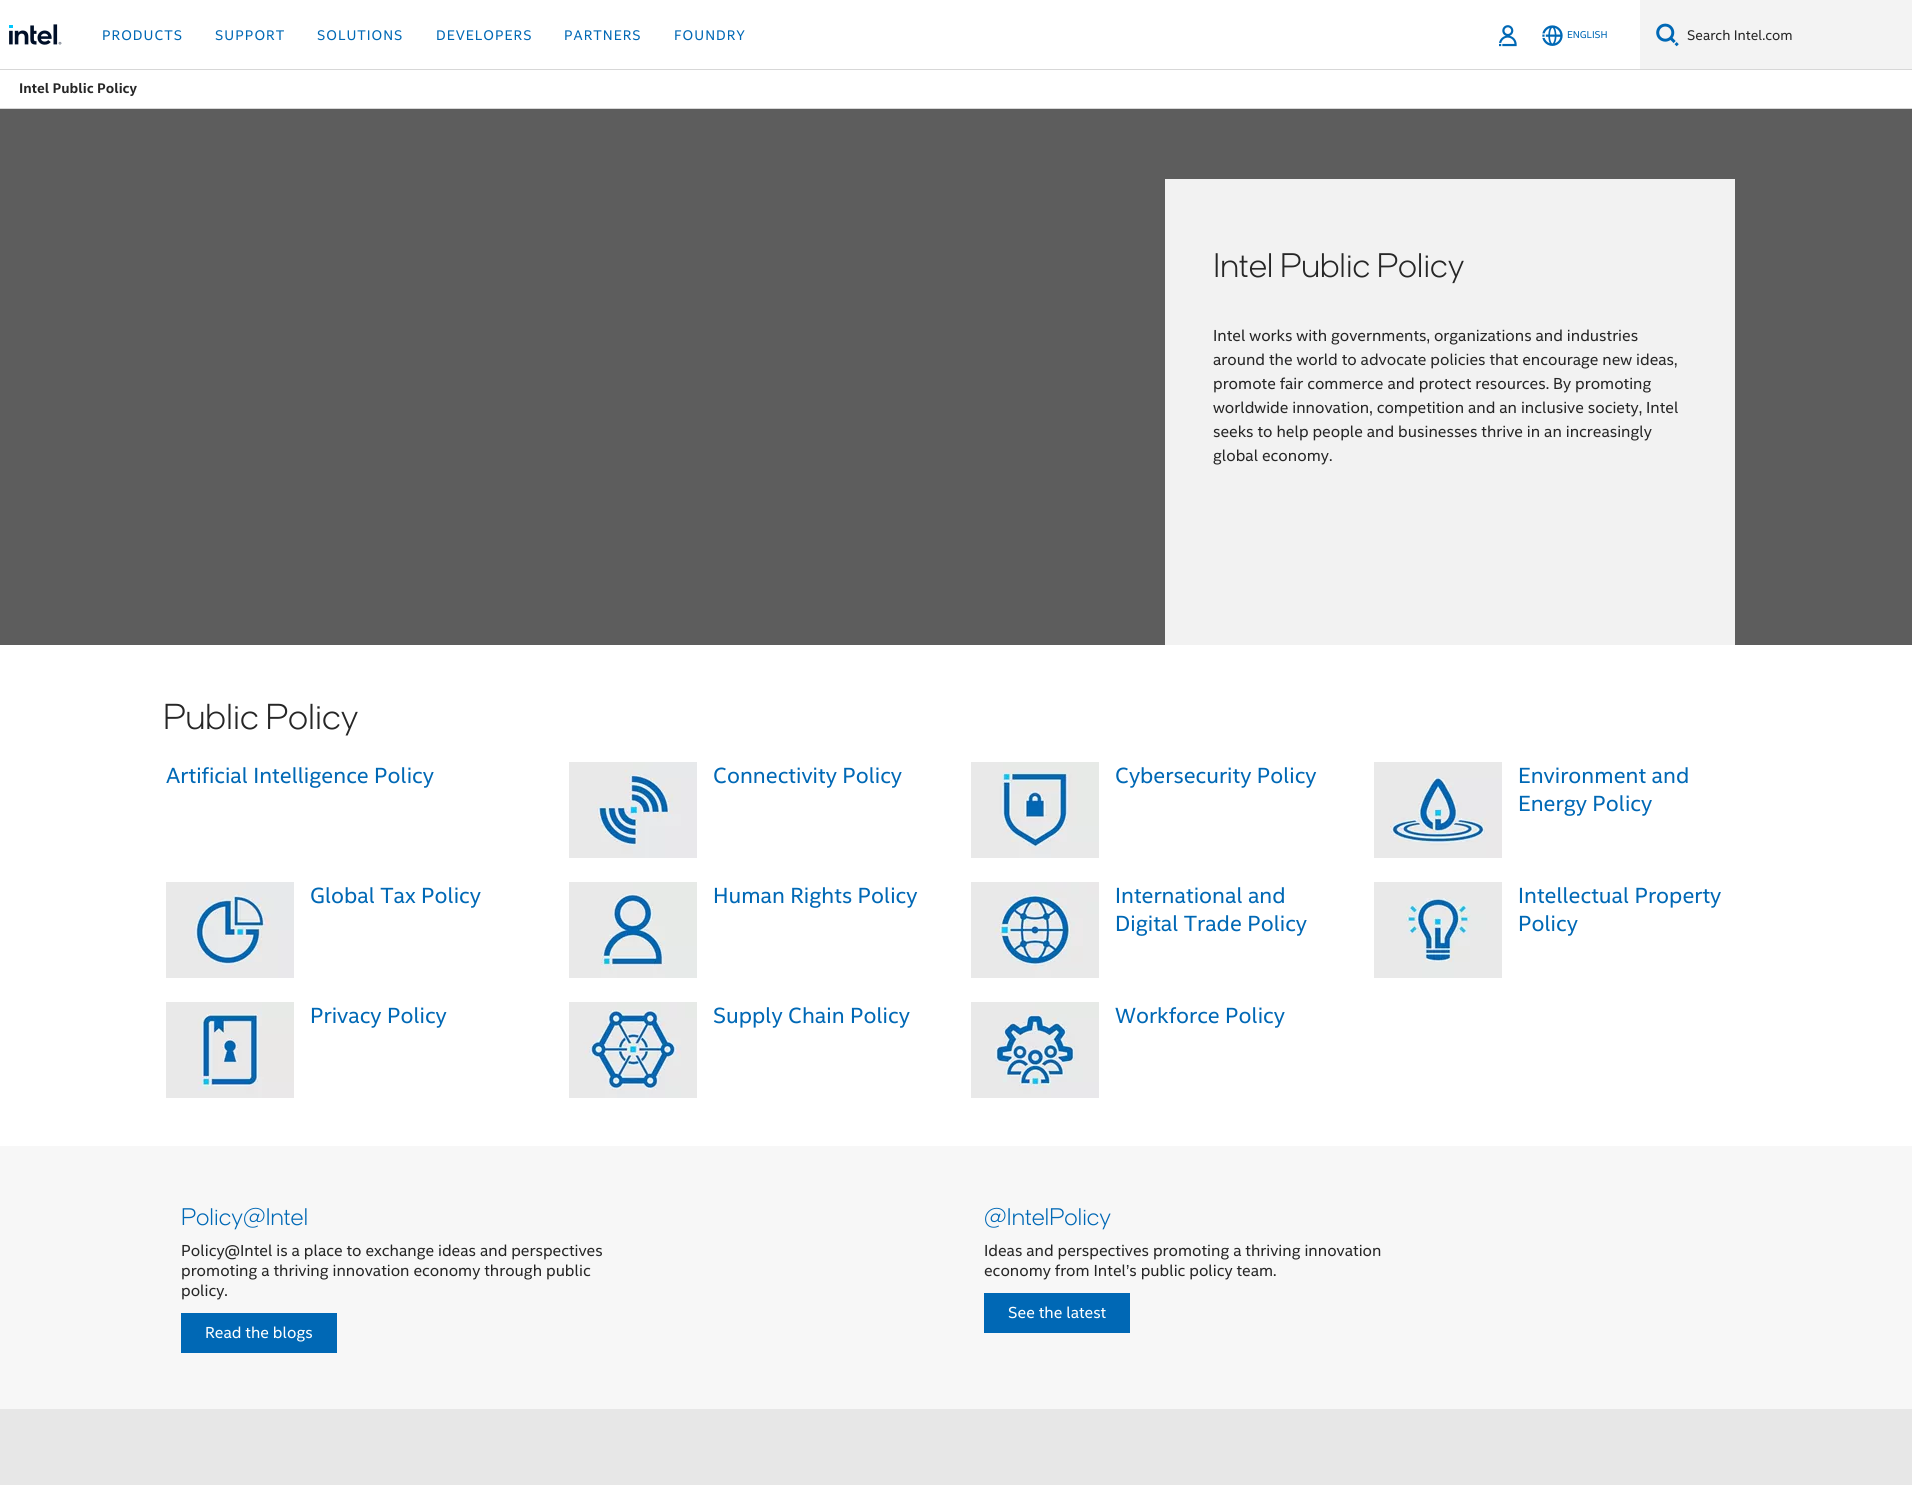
import math
import cairo

surface = cairo.ImageSurface(cairo.Format.RGB24, 1912, 1485)
ctx = cairo.Context(surface)
options = cairo.FontOptions()
options.set_hint_metrics(cairo.HintMetrics.OFF)
options.set_hint_style(cairo.HintStyle.NONE)
ctx.set_font_options(options)
ctx.set_miter_limit(4)


def ink(r, g, b):
    ctx.set_source_rgb(r / 255, g / 255, b / 255)


def write(x, y, s, family, size, color, bold=False, italic=False):
    ctx.select_font_face(family, cairo.FontSlant.ITALIC if italic else cairo.FontSlant.NORMAL, cairo.FontWeight.BOLD if bold else cairo.FontWeight.NORMAL)
    ctx.set_font_size(size)
    ink(*color)
    ctx.move_to(x, y)
    ctx.show_text(s)


def write_spaced(x, y, s, letter, word):
    ctx.move_to(x, y)
    for ch in s:
        ctx.show_text(ch)
        ctx.rel_move_to(letter + word * (ch == ' '), 0)


def block(x, y, w, h, *color):
    ink(*color)
    ctx.rectangle(x, y, w, h)
    ctx.fill()


def paste(path, x, y, w, h):
    ctx.save()
    ctx.set_source_surface(cairo.ImageSurface.create_from_png(path), x, y)
    ctx.rectangle(x, y, w, h)
    ctx.fill()
    ctx.restore()


s1 = dict(family="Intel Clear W", size=10, color=(0, 104, 181))
s2 = dict(family="Intel Clear W", size=14, color=(38, 38, 38))
s3 = dict(family="Intel Clear W", size=14, color=(38, 38, 38), bold=True)
s4 = dict(family="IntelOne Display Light", size=34, color=(38, 38, 38))
s5 = dict(family="Intel Clear W", size=16, color=(38, 38, 38))
s6 = dict(family="IntelOne Display Light", size=36, color=(38, 38, 38))
s7 = dict(family="Intel Clear W", size=22, color=(0, 104, 181))
s8 = dict(family="IntelOne Display Light", size=24, color=(0, 104, 181))
s9 = dict(family="Intel Clear W", size=16, color=(255, 255, 255))

ink(247, 247, 247)
ctx.paint()
block(0, 0, 1640, 69, 255, 255, 255)
block(0, 69, 1912, 1, 215, 215, 215)
paste("pic1.png", 9, 24, 53, 21)
ctx.select_font_face("Intel Clear W")
ctx.set_font_size(14)
ink(0, 104, 181)
write_spaced(102, 40, "PRODUCTS", 1, 0)
write_spaced(215, 40, "SUPPORT", 1, 0)
write_spaced(317, 40, "SOLUTIONS", 1, 0)
write_spaced(436, 40, "DEVELOPERS", 1, 0)
write_spaced(564, 40, "PARTNERS", 1, 0)
write_spaced(674, 40, "FOUNDRY", 1, 0)
paste("pic2.png", 1499, 25, 18, 22)
paste("pic3.png", 1542, 25, 21, 21)
write(1567, 38, "ENGLISH", **s1)
block(1640, 0, 272, 69, 243, 243, 243)
paste("pic4.png", 1656, 23, 23, 24)
write(1687, 40, "Search Intel.com", **s2)
block(0, 70, 1912, 38, 255, 255, 255)
block(0, 108, 1912, 1, 215, 215, 215)
write(19, 93, "Intel Public Policy", **s3)
block(0, 109, 1912, 536, 93, 93, 93)
block(1165, 179, 570, 466, 242, 242, 242)
write(1213, 277, "Intel Public Policy", **s4)
write(1213, 341, "Intel works with governments, organizations and industries", **s5)
write(1213, 365, "around the world to advocate policies that encourage new ideas,", **s5)
write(1213, 389, "promote fair commerce and protect resources. By promoting", **s5)
write(1213, 413, "worldwide innovation, competition and an inclusive society, Intel", **s5)
write(1213, 437, "seeks to help people and businesses thrive in an increasingly", **s5)
write(1213, 461, "global economy.", **s5)
block(0, 645, 1912, 501, 255, 255, 255)
write(163, 729, "Public Policy", **s6)
write(166, 783, "Artificial Intelligence Policy", **s7)
paste("pic5.png", 569, 762, 128, 96)
write(713, 783, "Connectivity Policy", **s7)
paste("pic6.png", 971, 762, 128, 96)
write(1115, 783, "Cybersecurity Policy", **s7)
paste("pic7.png", 1374, 762, 128, 96)
write(1518, 783, "Environment and", **s7)
write(1518, 811, "Energy Policy", **s7)
paste("pic8.png", 166, 882, 128, 96)
write(310, 903, "Global Tax Policy", **s7)
paste("pic9.png", 569, 882, 128, 96)
write(713, 903, "Human Rights Policy", **s7)
paste("pic10.png", 971, 882, 128, 96)
write(1115, 903, "International and", **s7)
write(1115, 931, "Digital Trade Policy", **s7)
paste("pic11.png", 1374, 882, 128, 96)
write(1518, 903, "Intellectual Property", **s7)
write(1518, 931, "Policy", **s7)
paste("pic12.png", 166, 1002, 128, 96)
write(310, 1023, "Privacy Policy", **s7)
paste("pic13.png", 569, 1002, 128, 96)
write(713, 1023, "Supply Chain Policy", **s7)
paste("pic14.png", 971, 1002, 128, 96)
write(1115, 1023, "Workforce Policy", **s7)
write(181, 1225, "Policy@Intel", **s8)
write(181, 1256, "Policy@Intel is a place to exchange ideas and perspectives", **s5)
write(181, 1276, "promoting a thriving innovation economy through public", **s5)
write(181, 1296, "policy.", **s5)
block(181, 1313, 156, 40, 0, 104, 181)
write(205, 1338, "Read the blogs", **s9)
write(984, 1225, "@IntelPolicy", **s8)
write(984, 1256, "Ideas and perspectives promoting a thriving innovation", **s5)
write(984, 1276, "economy from Intel’s public policy team.", **s5)
block(984, 1293, 146, 40, 0, 104, 181)
write(1008, 1318, "See the latest", **s9)
block(0, 1409, 1912, 76, 231, 231, 231)
surface.write_to_png("screenshot.png")
